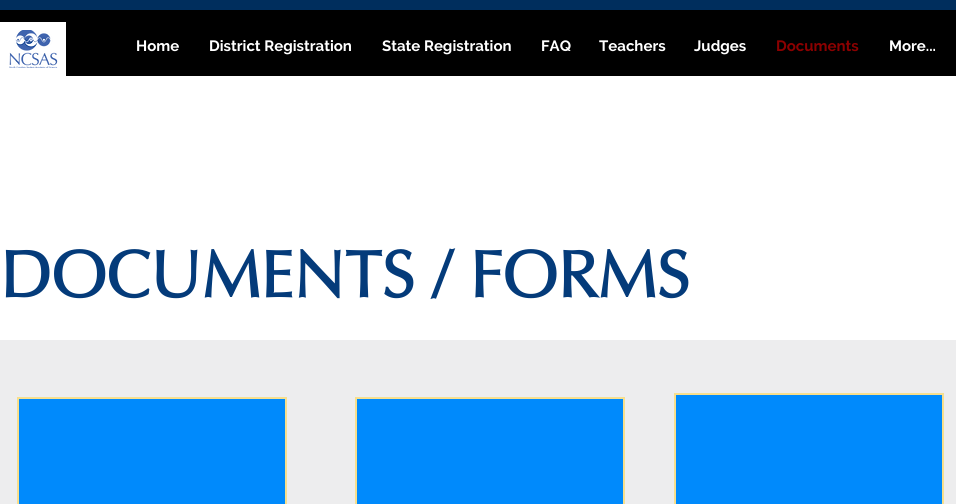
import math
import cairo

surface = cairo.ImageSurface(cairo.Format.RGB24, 956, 504)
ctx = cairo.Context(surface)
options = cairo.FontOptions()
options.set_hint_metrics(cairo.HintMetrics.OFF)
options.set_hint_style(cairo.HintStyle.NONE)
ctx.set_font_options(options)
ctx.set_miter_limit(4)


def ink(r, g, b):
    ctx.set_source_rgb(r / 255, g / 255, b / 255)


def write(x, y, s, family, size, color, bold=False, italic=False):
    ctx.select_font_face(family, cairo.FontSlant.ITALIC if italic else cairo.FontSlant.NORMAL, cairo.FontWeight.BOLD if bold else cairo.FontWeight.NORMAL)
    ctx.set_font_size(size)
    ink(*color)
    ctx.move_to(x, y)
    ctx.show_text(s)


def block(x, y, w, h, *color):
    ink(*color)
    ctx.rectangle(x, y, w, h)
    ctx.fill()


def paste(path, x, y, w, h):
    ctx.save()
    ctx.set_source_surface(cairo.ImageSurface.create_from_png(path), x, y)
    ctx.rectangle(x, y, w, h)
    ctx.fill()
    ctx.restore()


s1 = dict(family="Raleway", size=15, color=(255, 255, 255), bold=True)
s2 = dict(family="Raleway", size=15, color=(139, 0, 0), bold=True)
s3 = dict(family="Optima", size=66, color=(4, 59, 122), bold=True)

ink(237, 237, 238)
ctx.paint()
block(0, 0, 956, 10, 0, 46, 93)
block(0, 10, 956, 66, 0, 0, 0)
block(0, 22, 66, 54, 255, 255, 255)
paste("pic1.png", 9, 30, 49, 38)
write(136, 51, "Home", **s1)
write(209, 51, "District Registration", **s1)
write(382, 51, "State Registration", **s1)
write(541, 51, "FAQ", **s1)
write(599, 51, "Teachers", **s1)
write(694, 51, "Judges", **s1)
write(776, 51, "Documents", **s2)
write(889, 51, "More...", **s1)
block(0, 76, 956, 264, 255, 255, 255)
write(0, 297, "DOCUMENTS / FORMS", **s3)
block(19, 399, 266, 105, 0, 138, 252)
ctx.new_path()
ctx.move_to(286, 398)
ctx.line_to(286, 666)
ctx.line_to(18, 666)
ctx.line_to(18, 398)
ctx.close_path()
ink(247, 223, 141)
ctx.stroke()
block(357, 399, 266, 105, 0, 138, 252)
ctx.new_path()
ctx.move_to(624, 398)
ctx.line_to(624, 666)
ctx.line_to(356, 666)
ctx.line_to(356, 398)
ctx.close_path()
ink(247, 223, 141)
ctx.stroke()
block(676, 395, 266, 109, 0, 138, 252)
ctx.new_path()
ctx.move_to(943, 394)
ctx.line_to(943, 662)
ctx.line_to(675, 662)
ctx.line_to(675, 394)
ctx.close_path()
ink(247, 223, 141)
ctx.stroke()
surface.write_to_png("screenshot.png")
